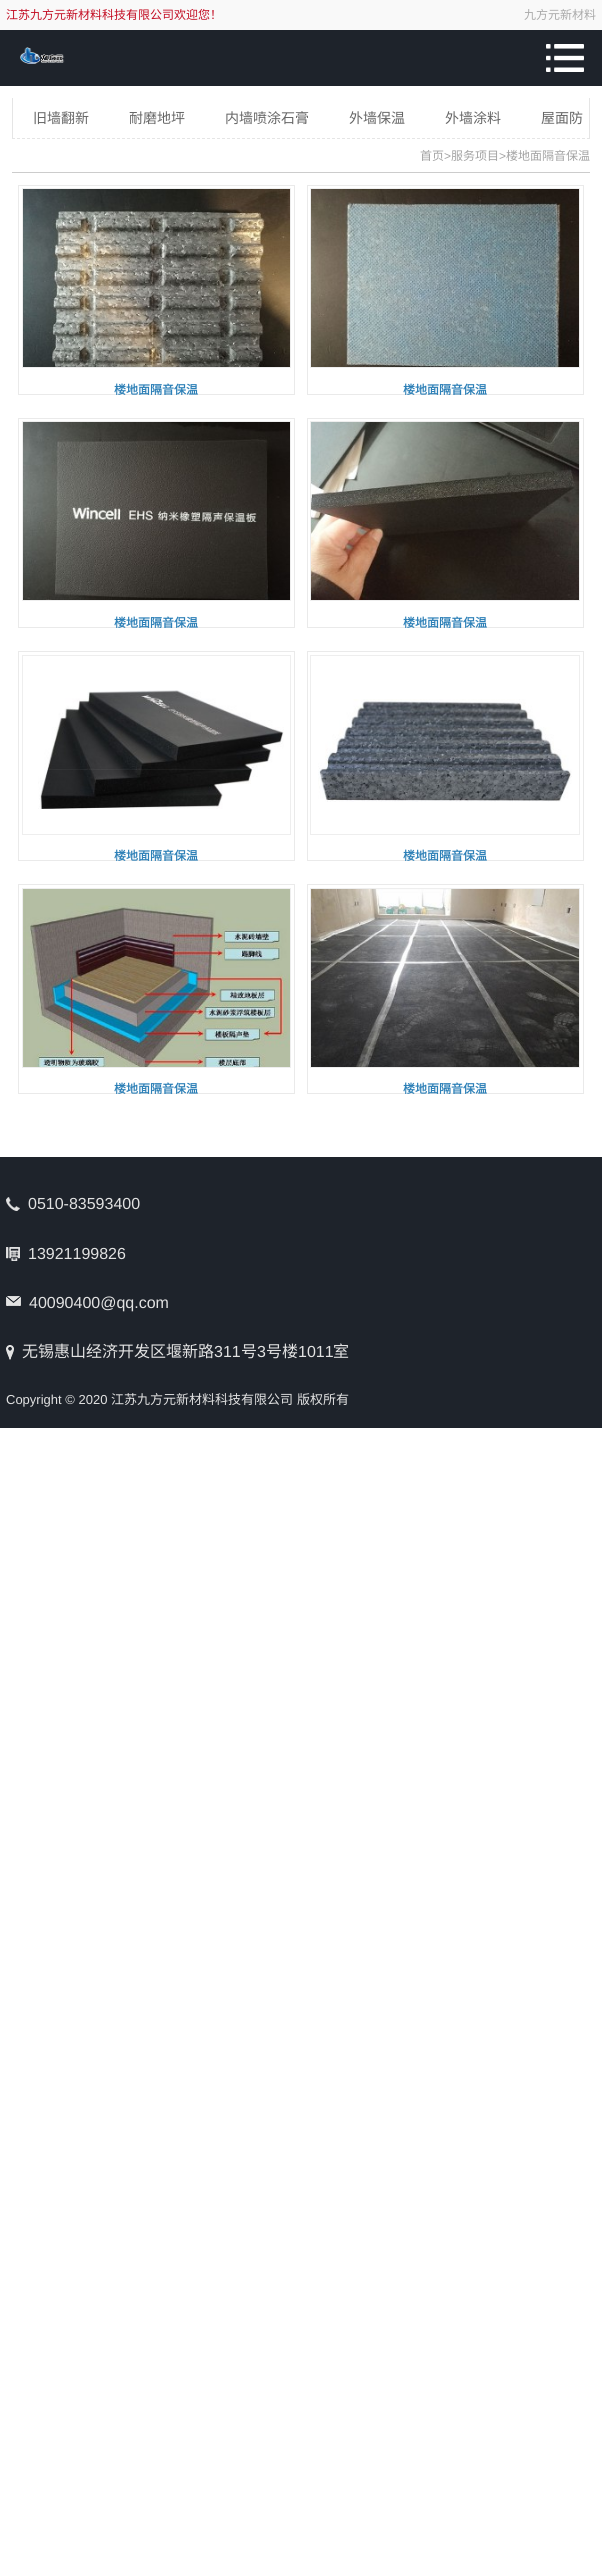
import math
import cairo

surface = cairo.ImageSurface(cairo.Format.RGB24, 602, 2574)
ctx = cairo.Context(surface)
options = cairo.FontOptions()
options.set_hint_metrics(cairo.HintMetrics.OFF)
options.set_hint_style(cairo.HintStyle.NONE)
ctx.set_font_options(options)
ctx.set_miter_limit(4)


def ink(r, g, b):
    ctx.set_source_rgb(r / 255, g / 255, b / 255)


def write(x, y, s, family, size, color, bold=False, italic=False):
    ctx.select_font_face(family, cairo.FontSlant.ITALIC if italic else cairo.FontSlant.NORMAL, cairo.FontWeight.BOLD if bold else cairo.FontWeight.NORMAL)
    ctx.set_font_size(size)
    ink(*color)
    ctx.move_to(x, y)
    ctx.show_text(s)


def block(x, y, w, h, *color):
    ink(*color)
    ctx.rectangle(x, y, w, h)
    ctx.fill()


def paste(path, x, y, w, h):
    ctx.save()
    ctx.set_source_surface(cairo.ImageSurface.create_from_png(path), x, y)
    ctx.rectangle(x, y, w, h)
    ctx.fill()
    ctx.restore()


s1 = dict(family="Noto Sans CJK SC", size=12, color=(195, 13, 35))
s2 = dict(family="Noto Sans CJK SC", size=12, color=(170, 170, 170))
s3 = dict(family="Noto Sans CJK SC", size=14, color=(102, 102, 102))
s4 = dict(family="Noto Sans CJK SC", size=12, color=(163, 163, 163))
s5 = dict(family="Liberation Sans", size=12, color=(163, 163, 163))
s6 = dict(family="Noto Sans CJK SC", size=12, color=(45, 128, 183), bold=True)
s7 = dict(family="Liberation Sans", size=16, color=(226, 226, 226))
s8 = dict(family="Noto Sans CJK SC", size=16, color=(226, 226, 226))
s9 = dict(family="Liberation Sans", size=13, color=(226, 226, 226))
s10 = dict(family="Noto Sans CJK SC", size=13, color=(226, 226, 226))

ink(255, 255, 255)
ctx.paint()
block(0, 0, 602, 30, 249, 249, 249)
write(6, 19, "江苏九方元新材料科技有限公司欢迎您！", **s1)
write(524, 19, "九方元新材料", **s2)
block(0, 30, 602, 56, 30, 35, 43)
paste("pic1.png", 20, 47, 45, 17)
paste("pic2.png", 546, 44, 38, 28)
block(589, 98, 1, 41, 229, 229, 229)
ctx.new_path()
ctx.move_to(12, 138.5)
ctx.line_to(590, 138.5)
ctx.set_line_width(1)
ctx.set_dash([3, 2])
ctx.stroke()
block(12, 98, 1, 41, 229, 229, 229)
write(33, 123, "旧墙翻新", **s3)
write(129, 123, "耐磨地坪", **s3)
write(225, 123, "内墙喷涂石膏", **s3)
write(349, 123, "外墙保温", **s3)
write(445, 123, "外墙涂料", **s3)
write(541, 123, "屋面防", **s3)
block(12, 172, 578, 1, 204, 204, 204)
write(420, 160, "首页", **s4)
write(444, 160, ">", **s5)
write(451, 160, "服务项目", **s4)
write(499, 160, ">", **s5)
write(506, 160, "楼地面隔音保温", **s4)
ctx.rectangle(18.5, 185.5, 276, 209)
ink(234, 234, 234)
ctx.set_dash([])
ctx.stroke()
ctx.rectangle(22.5, 188.5, 268, 179)
ink(238, 238, 238)
ctx.stroke()
paste("pic3.png", 23, 189, 267, 178)
write(114, 394, "楼地面隔音保温", **s6)
ctx.rectangle(307.5, 185.5, 276, 209)
ink(234, 234, 234)
ctx.stroke()
ctx.rectangle(310.5, 188.5, 269, 179)
ink(238, 238, 238)
ctx.stroke()
paste("pic4.png", 311, 189, 268, 178)
write(403, 394, "楼地面隔音保温", **s6)
ctx.rectangle(18.5, 418.5, 276, 209)
ink(234, 234, 234)
ctx.stroke()
ctx.rectangle(22.5, 421.5, 268, 179)
ink(238, 238, 238)
ctx.stroke()
paste("pic5.png", 23, 422, 267, 178)
write(114, 627, "楼地面隔音保温", **s6)
ctx.rectangle(307.5, 418.5, 276, 209)
ink(234, 234, 234)
ctx.stroke()
ctx.rectangle(310.5, 421.5, 269, 179)
ink(238, 238, 238)
ctx.stroke()
paste("pic6.png", 311, 422, 268, 178)
write(403, 627, "楼地面隔音保温", **s6)
ctx.rectangle(18.5, 651.5, 276, 209)
ink(234, 234, 234)
ctx.stroke()
ctx.rectangle(22.5, 655.5, 268, 179)
ink(238, 238, 238)
ctx.stroke()
paste("pic7.png", 38, 690, 246, 119)
write(114, 860, "楼地面隔音保温", **s6)
ctx.rectangle(307.5, 651.5, 276, 209)
ink(234, 234, 234)
ctx.stroke()
ctx.rectangle(310.5, 655.5, 269, 179)
ink(238, 238, 238)
ctx.stroke()
paste("pic8.png", 318, 699, 254, 103)
write(403, 860, "楼地面隔音保温", **s6)
ctx.rectangle(18.5, 884.5, 276, 209)
ink(234, 234, 234)
ctx.stroke()
ctx.rectangle(22.5, 888.5, 268, 179)
ink(238, 238, 238)
ctx.stroke()
paste("pic9.png", 23, 889, 267, 178)
write(114, 1093, "楼地面隔音保温", **s6)
ctx.rectangle(307.5, 884.5, 276, 209)
ink(234, 234, 234)
ctx.stroke()
ctx.rectangle(310.5, 888.5, 269, 179)
ink(238, 238, 238)
ctx.stroke()
paste("pic10.png", 311, 889, 268, 178)
write(403, 1093, "楼地面隔音保温", **s6)
block(0, 1157, 602, 271, 30, 35, 43)
paste("pic11.png", 6, 1197, 14, 14)
write(28, 1209, "0510-83593400", **s7)
paste("pic12.png", 6, 1247, 14, 14)
write(28, 1259, "13921199826", **s7)
paste("pic13.png", 6, 1296, 15, 10)
write(29, 1308, "40090400@qq.com", **s7)
paste("pic14.png", 6, 1345, 8, 15)
write(22, 1357, "无锡惠山经济开发区堰新路", **s8)
write(214, 1357, "311", **s7)
write(241, 1357, "号", **s8)
write(257, 1357, "3", **s7)
write(266, 1357, "号楼", **s8)
write(298, 1357, "1011", **s7)
write(333, 1357, "室", **s8)
write(6, 1404, "Copyright © 2020", **s9)
write(111, 1404, "江苏九方元新材料科技有限公司", **s10)
write(297, 1404, "版权所有", **s10)
surface.write_to_png("screenshot.png")
